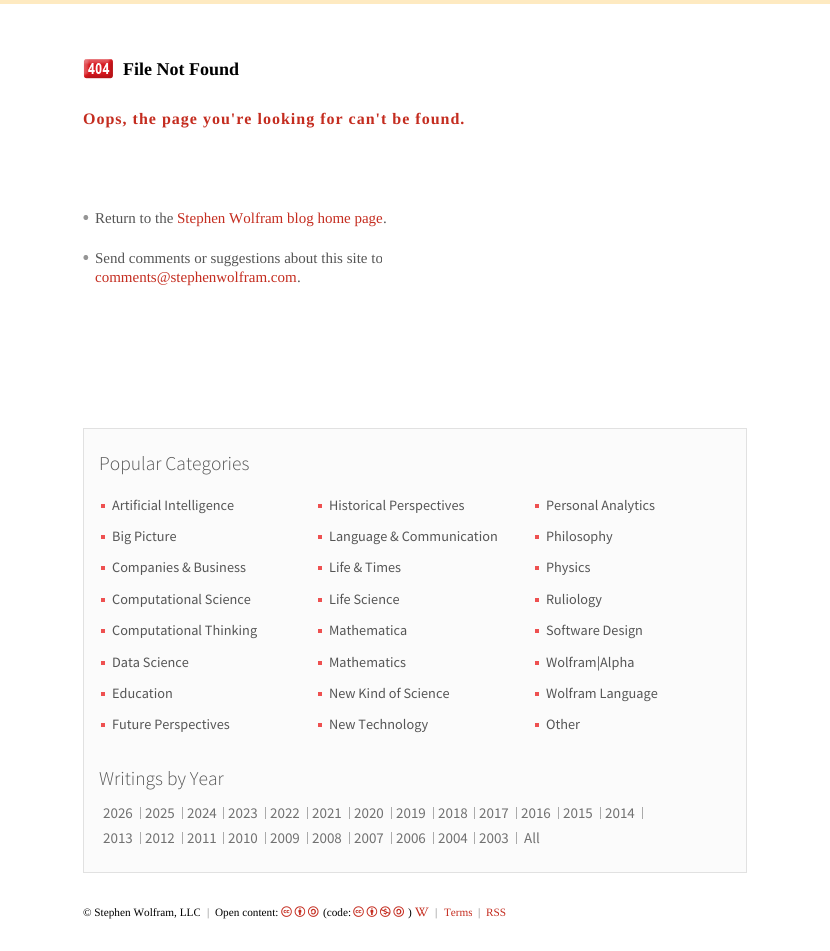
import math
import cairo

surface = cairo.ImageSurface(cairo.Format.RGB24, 830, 951)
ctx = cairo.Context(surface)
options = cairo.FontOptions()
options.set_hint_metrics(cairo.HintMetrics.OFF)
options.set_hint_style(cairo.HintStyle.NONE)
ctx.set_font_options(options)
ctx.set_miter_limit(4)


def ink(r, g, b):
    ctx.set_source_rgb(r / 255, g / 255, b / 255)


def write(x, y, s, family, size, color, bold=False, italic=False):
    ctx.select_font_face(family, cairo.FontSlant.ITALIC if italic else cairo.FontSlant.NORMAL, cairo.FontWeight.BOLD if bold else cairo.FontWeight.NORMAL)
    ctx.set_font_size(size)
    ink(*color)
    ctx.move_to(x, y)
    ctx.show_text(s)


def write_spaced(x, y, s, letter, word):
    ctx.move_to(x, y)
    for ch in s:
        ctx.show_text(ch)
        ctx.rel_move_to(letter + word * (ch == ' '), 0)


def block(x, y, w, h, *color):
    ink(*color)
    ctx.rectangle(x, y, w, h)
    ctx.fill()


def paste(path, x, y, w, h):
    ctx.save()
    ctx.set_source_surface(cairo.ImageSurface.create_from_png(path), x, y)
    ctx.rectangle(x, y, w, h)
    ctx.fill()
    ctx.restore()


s1 = dict(family="Liberation Serif", size=18, color=(0, 0, 0), bold=True)
s2 = dict(family="Liberation Serif", size=15, color=(85, 85, 85))
s3 = dict(family="Liberation Serif", size=15, color=(196, 44, 31))
s4 = dict(family="Source Sans Pro Light", size=19.5, color=(85, 85, 85))
s5 = dict(family="Source Sans Pro", size=14.25, color=(85, 85, 85))
s6 = dict(family="Source Sans Pro", size=15, color=(113, 113, 113))
s7 = dict(family="Liberation Serif", size=11.25, color=(0, 0, 0))
s8 = dict(family="Liberation Serif", size=11.25, color=(128, 128, 128))
s9 = dict(family="Liberation Serif", size=11.25, color=(196, 44, 31))

ink(255, 255, 255)
ctx.paint()
block(0, 0, 830, 4, 254, 234, 193)
paste("pic1.png", 83, 59, 30, 20)
write(123, 75, "File Not Found", **s1)
ctx.set_font_size(16)
ink(196, 44, 31)
write_spaced(83, 124, "Oops, the page you're looking for can't be found.", 1, 0)
paste("pic2.png", 83, 215, 6, 5)
write(95, 223, "Return to the", **s2)
write(177, 223, "Stephen Wolfram blog home page", **s3)
write(383, 223, ".", **s2)
paste("pic2.png", 83, 255, 6, 5)
write(95, 263, "Send comments or suggestions about this site to", **s2)
write(95, 282, "comments@stephenwolfram.com", **s3)
write(297, 282, ".", **s2)
ink(251, 251, 251)
ctx.rectangle(83.5, 428.5, 663, 444)
ctx.fill_preserve()
ink(225, 225, 225)
ctx.set_line_width(1)
ctx.stroke()
write(99, 470, "Popular Categories", **s4)
block(101, 504, 4, 4, 238, 80, 80)
write(112, 510, "Artificial Intelligence", **s5)
block(318, 504, 4, 4, 238, 80, 80)
write(329, 510, "Historical Perspectives", **s5)
block(535, 504, 4, 4, 238, 80, 80)
write(546, 510, "Personal Analytics", **s5)
block(101, 535, 4, 4, 238, 80, 80)
write(112, 541, "Big Picture", **s5)
block(318, 535, 4, 4, 238, 80, 80)
write(329, 541, "Language & Communication", **s5)
block(535, 535, 4, 4, 238, 80, 80)
write(546, 541, "Philosophy", **s5)
block(101, 566, 4, 4, 238, 80, 80)
write(112, 572, "Companies & Business", **s5)
block(318, 566, 4, 4, 238, 80, 80)
write(329, 572, "Life & Times", **s5)
block(535, 566, 4, 4, 238, 80, 80)
write(546, 572, "Physics", **s5)
block(101, 598, 4, 4, 238, 80, 80)
write(112, 604, "Computational Science", **s5)
block(318, 598, 4, 4, 238, 80, 80)
write(329, 604, "Life Science", **s5)
block(535, 598, 4, 4, 238, 80, 80)
write(546, 604, "Ruliology", **s5)
block(101, 629, 4, 4, 238, 80, 80)
write(112, 635, "Computational Thinking", **s5)
block(318, 629, 4, 4, 238, 80, 80)
write(329, 635, "Mathematica", **s5)
block(535, 629, 4, 4, 238, 80, 80)
write(546, 635, "Software Design", **s5)
block(101, 661, 4, 4, 238, 80, 80)
write(112, 667, "Data Science", **s5)
block(318, 661, 4, 4, 238, 80, 80)
write(329, 667, "Mathematics", **s5)
block(535, 661, 4, 4, 238, 80, 80)
write(546, 667, "Wolfram|Alpha", **s5)
block(101, 692, 4, 4, 238, 80, 80)
write(112, 698, "Education", **s5)
block(318, 692, 4, 4, 238, 80, 80)
write(329, 698, "New Kind of Science", **s5)
block(535, 692, 4, 4, 238, 80, 80)
write(546, 698, "Wolfram Language", **s5)
block(101, 723, 4, 4, 238, 80, 80)
write(112, 729, "Future Perspectives", **s5)
block(318, 723, 4, 4, 238, 80, 80)
write(329, 729, "New Technology", **s5)
block(535, 723, 4, 4, 238, 80, 80)
write(546, 729, "Other", **s5)
write(99, 785, "Writings by Year", **s4)
block(140, 807, 1, 12, 170, 170, 170)
write(103, 818, "2026", **s6)
block(182, 807, 1, 12, 170, 170, 170)
write(145, 818, "2025", **s6)
block(223, 807, 1, 12, 170, 170, 170)
write(187, 818, "2024", **s6)
block(265, 807, 1, 12, 170, 170, 170)
write(228, 818, "2023", **s6)
block(307, 807, 1, 12, 170, 170, 170)
write(270, 818, "2022", **s6)
block(349, 807, 1, 12, 170, 170, 170)
write(312, 818, "2021", **s6)
block(391, 807, 1, 12, 170, 170, 170)
write(354, 818, "2020", **s6)
block(433, 807, 1, 12, 170, 170, 170)
write(396, 818, "2019", **s6)
block(474, 807, 1, 12, 170, 170, 170)
write(438, 818, "2018", **s6)
block(516, 807, 1, 12, 170, 170, 170)
write(479, 818, "2017", **s6)
block(558, 807, 1, 12, 170, 170, 170)
write(521, 818, "2016", **s6)
block(600, 807, 1, 12, 170, 170, 170)
write(563, 818, "2015", **s6)
block(642, 807, 1, 12, 170, 170, 170)
write(605, 818, "2014", **s6)
block(140, 832, 1, 12, 170, 170, 170)
write(103, 843, "2013", **s6)
block(182, 832, 1, 12, 170, 170, 170)
write(145, 843, "2012", **s6)
block(223, 832, 1, 12, 170, 170, 170)
write(187, 843, "2011", **s6)
block(265, 832, 1, 12, 170, 170, 170)
write(228, 843, "2010", **s6)
block(307, 832, 1, 12, 170, 170, 170)
write(270, 843, "2009", **s6)
block(349, 832, 1, 12, 170, 170, 170)
write(312, 843, "2008", **s6)
block(391, 832, 1, 12, 170, 170, 170)
write(354, 843, "2007", **s6)
block(433, 832, 1, 12, 170, 170, 170)
write(396, 843, "2006", **s6)
block(474, 832, 1, 12, 170, 170, 170)
write(438, 843, "2004", **s6)
block(516, 832, 1, 12, 170, 170, 170)
write(479, 843, "2003", **s6)
write(524, 843, "All", **s6)
write(83, 916, "© Stephen Wolfram, LLC", **s7)
write(207, 916, "|", **s8)
write(215, 916, "Open content:", **s7)
paste("pic3.png", 281, 906, 38, 11)
write(323, 916, "(code:", **s7)
paste("pic4.png", 353, 906, 51, 11)
write(408, 916, ")", **s7)
paste("pic5.png", 414, 907, 15, 10)
write(435, 916, "|", **s8)
write(444, 916, "Terms", **s9)
write(478, 916, "|", **s8)
write(486, 916, "RSS", **s9)
surface.write_to_png("screenshot.png")
